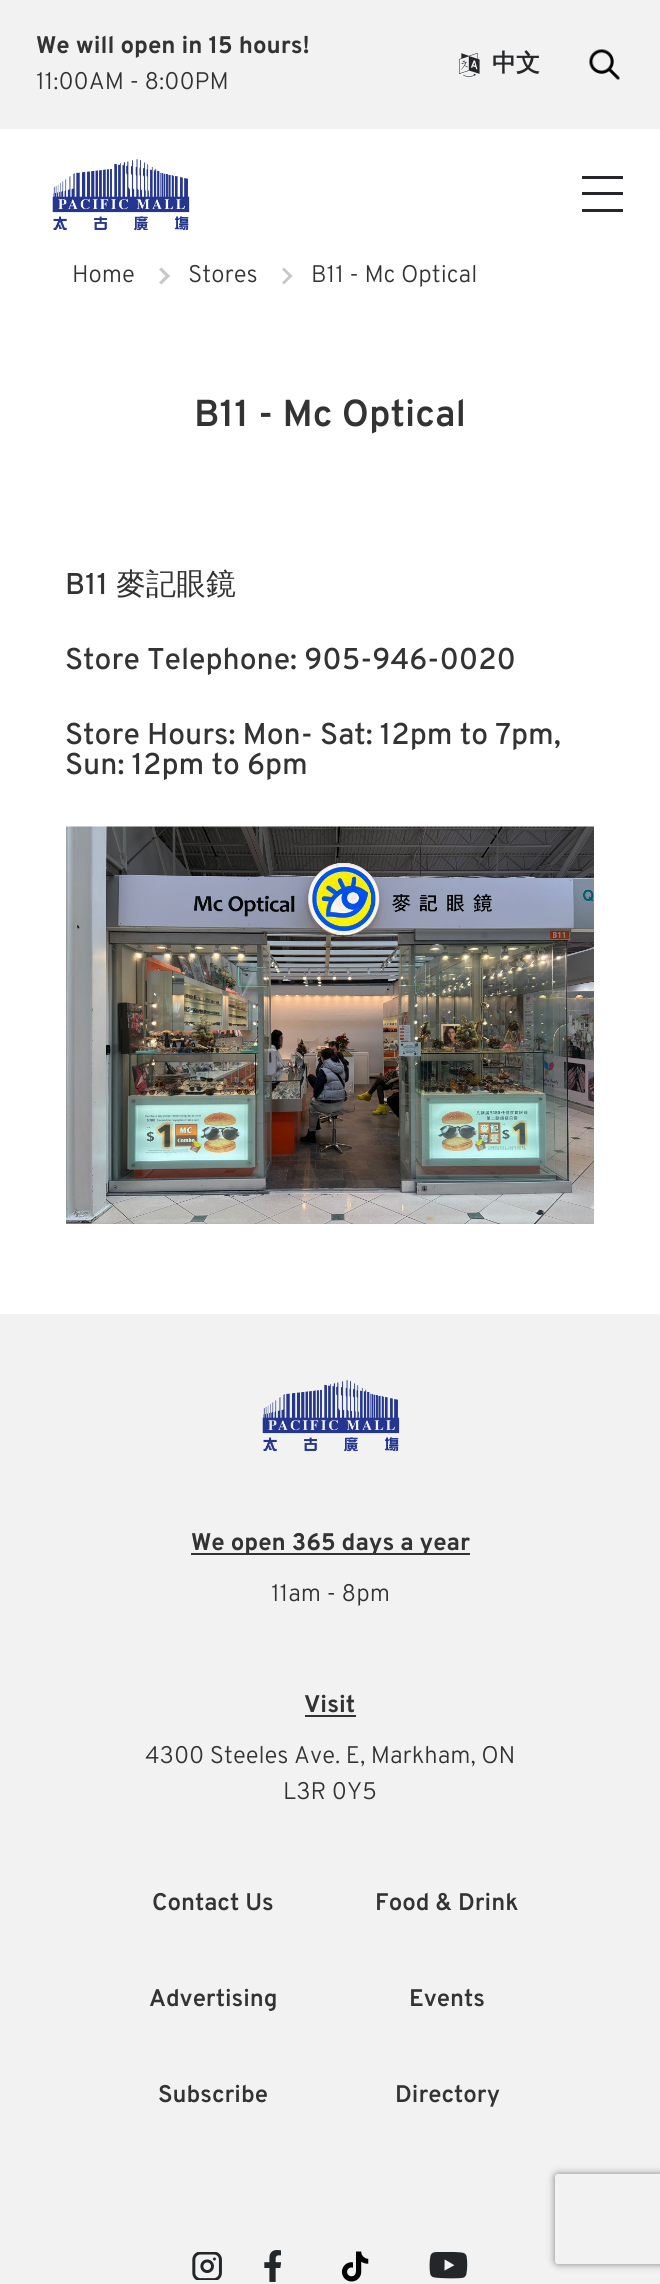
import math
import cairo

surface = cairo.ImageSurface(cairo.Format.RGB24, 660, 2284)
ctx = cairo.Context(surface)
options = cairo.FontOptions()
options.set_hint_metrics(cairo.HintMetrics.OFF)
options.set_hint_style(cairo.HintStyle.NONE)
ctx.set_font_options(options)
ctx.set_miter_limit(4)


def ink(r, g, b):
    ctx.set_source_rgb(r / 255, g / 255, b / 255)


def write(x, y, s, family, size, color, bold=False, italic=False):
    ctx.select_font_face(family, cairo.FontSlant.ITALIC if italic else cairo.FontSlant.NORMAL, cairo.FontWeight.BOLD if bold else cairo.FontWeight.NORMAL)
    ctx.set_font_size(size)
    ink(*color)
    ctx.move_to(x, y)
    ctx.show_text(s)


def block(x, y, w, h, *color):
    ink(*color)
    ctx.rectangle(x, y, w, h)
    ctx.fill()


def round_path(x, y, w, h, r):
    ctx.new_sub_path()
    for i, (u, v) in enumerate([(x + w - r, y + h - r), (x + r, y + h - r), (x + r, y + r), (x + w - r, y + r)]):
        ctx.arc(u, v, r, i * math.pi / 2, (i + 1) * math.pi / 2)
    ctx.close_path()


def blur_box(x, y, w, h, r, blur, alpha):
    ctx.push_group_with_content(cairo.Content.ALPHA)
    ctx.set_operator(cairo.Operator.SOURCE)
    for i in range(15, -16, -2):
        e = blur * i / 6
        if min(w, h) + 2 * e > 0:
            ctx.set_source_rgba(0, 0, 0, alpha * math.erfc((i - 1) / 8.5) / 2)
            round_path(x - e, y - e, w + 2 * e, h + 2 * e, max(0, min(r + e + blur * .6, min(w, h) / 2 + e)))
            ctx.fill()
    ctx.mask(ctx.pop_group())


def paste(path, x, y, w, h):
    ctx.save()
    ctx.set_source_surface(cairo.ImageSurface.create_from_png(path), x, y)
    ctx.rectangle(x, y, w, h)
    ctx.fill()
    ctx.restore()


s1 = dict(family="Overpass", size=24, color=(51, 51, 51), bold=True)
s2 = dict(family="Overpass Light", size=24, color=(51, 51, 51))
s3 = dict(family="WenQuanYi Zen Hei", size=24, color=(37, 39, 42), bold=True)
s4 = dict(family="Overpass SemiBold", size=37.5, color=(51, 51, 51))
s5 = dict(family="Overpass Medium", size=30, color=(51, 51, 51))
s6 = dict(family="WenQuanYi Zen Hei Medium", size=30, color=(51, 51, 51))
s7 = dict(family="Overpass SemiBold", size=24, color=(51, 51, 51))

ink(255, 255, 255)
ctx.paint()
block(0, 0, 660, 129, 242, 242, 242)
write(36, 53, "We will open in 15 hours!", **s1)
write(36, 89, "11:00AM - 8:00PM", **s2)
paste("pic1.png", 459, 53, 21, 24)
write(492, 71, "中文", **s3)
paste("pic2.png", 589, 49, 31, 31)
paste("pic3.png", 52, 159, 138, 72)
block(582, 176, 41, 3, 37, 39, 42)
block(582, 192, 41, 3, 37, 39, 42)
block(582, 209, 41, 3, 37, 39, 42)
write(72, 282, "Home", **s2)
ink(200, 200, 200)
ctx.new_path()
ctx.move_to(159, 269.5)
ctx.line_to(161.5, 267.5)
ctx.line_to(170, 276)
ctx.line_to(167.5, 278)
ctx.close_path()
ctx.fill()
ctx.new_path()
ctx.move_to(159, 282.5)
ctx.line_to(167.5, 274)
ctx.line_to(170, 276)
ctx.line_to(161.5, 284.5)
ctx.close_path()
ctx.fill()
write(188, 282, "Stores", **s2)
ink(200, 200, 200)
ctx.new_path()
ctx.move_to(282, 269.5)
ctx.line_to(284, 267.5)
ctx.line_to(292.5, 276)
ctx.line_to(290.5, 278)
ctx.close_path()
ctx.fill()
ctx.new_path()
ctx.move_to(282, 282.5)
ctx.line_to(290.5, 274)
ctx.line_to(292.5, 276)
ctx.line_to(284, 284.5)
ctx.close_path()
ctx.fill()
write(311, 282, "B11 - Mc Optical", **s2)
write(194, 426, "B11 - Mc Optical", **s4)
write(65, 594, "B11", **s5)
write(116, 594, "麥記眼鏡", **s6)
write(65, 669, "Store Telephone: 905-946-0020", **s5)
write(65, 744, "Store Hours: Mon- Sat: 12pm to 7pm,", **s5)
write(65, 774, "Sun: 12pm to 6pm", **s5)
paste("pic4.png", 66, 826, 528, 398)
block(0, 1314, 660, 970, 242, 242, 242)
paste("pic5.png", 262, 1380, 138, 72)
block(191, 1553, 279, 2, 51, 51, 51)
write(191, 1550, "We open 365 days a year", **s1)
write(271, 1601, "11am - 8pm", **s2)
write(304, 1712, "Visit", **s1)
block(305, 1715, 51, 2, 51, 51, 51)
write(145, 1763, "4300 Steeles Ave. E, Markham, ON", **s2)
write(283, 1799, "L3R 0Y5", **s2)
paste("pic6.png", 192, 2252, 30, 28)
paste("pic7.png", 264, 2250, 17, 32)
paste("pic8.png", 341, 2251, 28, 31)
paste("pic9.png", 429, 2252, 39, 27)
write(152, 1910, "Contact Us", **s7)
write(375, 1910, "Food & Drink", **s7)
write(149, 2006, "Advertising", **s7)
write(409, 2006, "Events", **s7)
write(158, 2102, "Subscribe", **s7)
write(395, 2102, "Directory", **s7)
ctx.save()
ctx.set_fill_rule(cairo.FillRule.EVEN_ODD)
ctx.new_path()
ctx.move_to(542, 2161)
ctx.line_to(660, 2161)
ctx.line_to(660, 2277)
ctx.line_to(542, 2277)
ctx.close_path()
ctx.move_to(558, 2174)
ctx.line_to(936, 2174)
ctx.curve_to(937.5, 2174, 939, 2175.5, 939, 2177)
ctx.line_to(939, 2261)
ctx.curve_to(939, 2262.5, 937.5, 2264, 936, 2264)
ctx.line_to(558, 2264)
ctx.curve_to(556.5, 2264, 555, 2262.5, 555, 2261)
ctx.line_to(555, 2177)
ctx.curve_to(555, 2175.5, 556.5, 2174, 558, 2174)
ctx.close_path()
ctx.clip()
ink(128, 128, 128)
blur_box(555, 2174, 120, 90, 3, 4, 1)
ctx.restore()
surface.write_to_png("screenshot.png")
